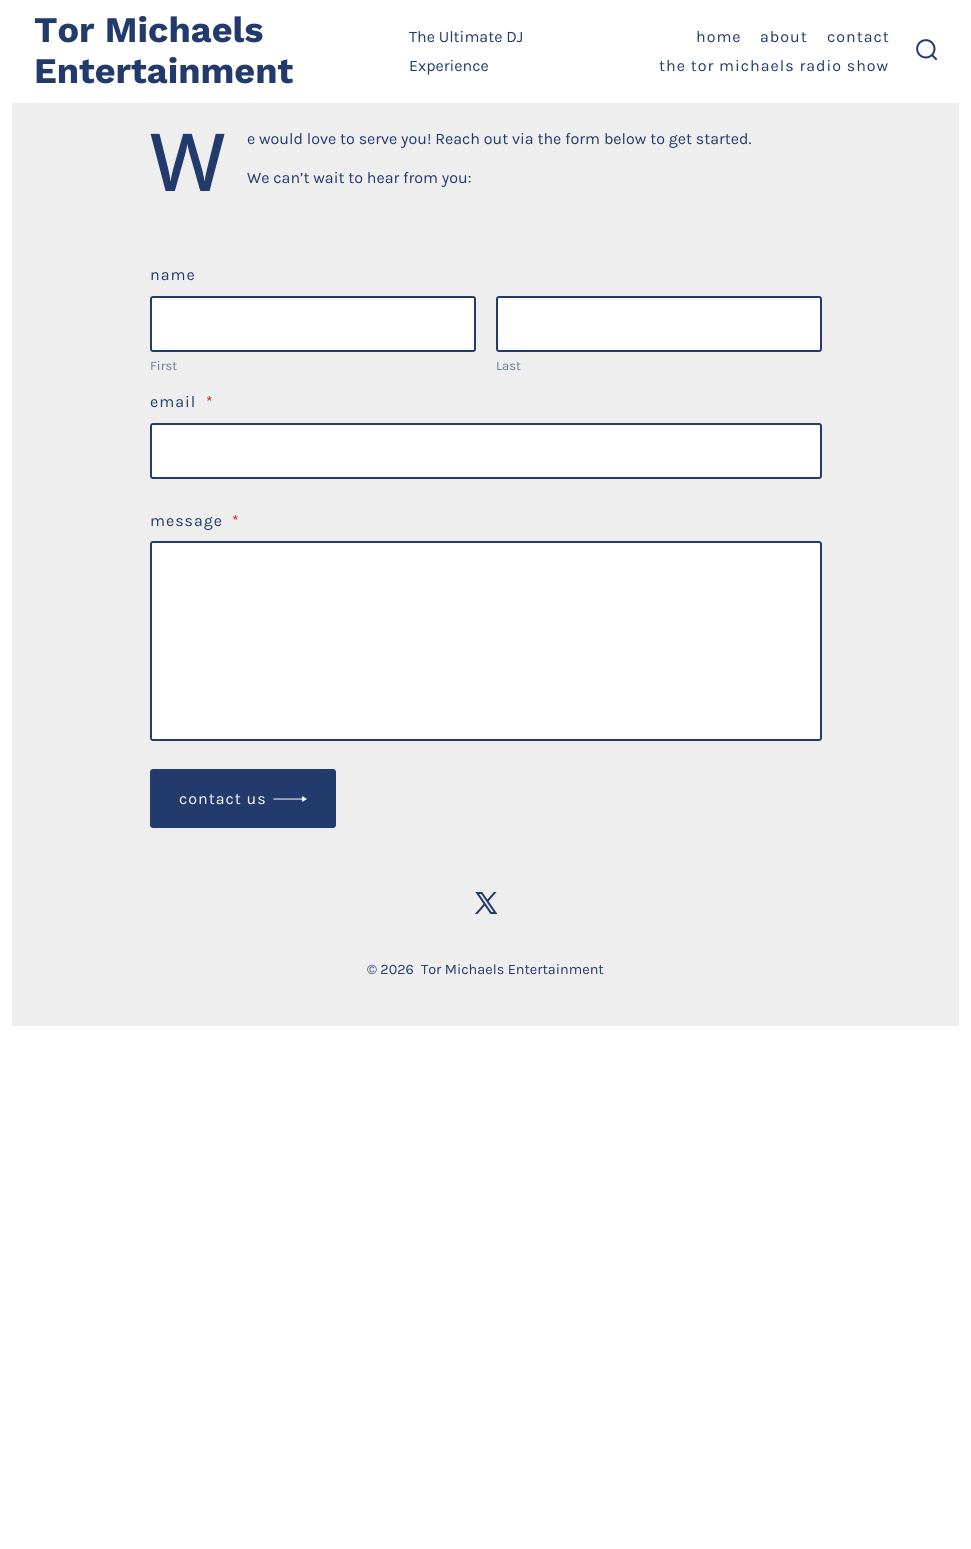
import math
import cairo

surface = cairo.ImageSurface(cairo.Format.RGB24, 971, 1549)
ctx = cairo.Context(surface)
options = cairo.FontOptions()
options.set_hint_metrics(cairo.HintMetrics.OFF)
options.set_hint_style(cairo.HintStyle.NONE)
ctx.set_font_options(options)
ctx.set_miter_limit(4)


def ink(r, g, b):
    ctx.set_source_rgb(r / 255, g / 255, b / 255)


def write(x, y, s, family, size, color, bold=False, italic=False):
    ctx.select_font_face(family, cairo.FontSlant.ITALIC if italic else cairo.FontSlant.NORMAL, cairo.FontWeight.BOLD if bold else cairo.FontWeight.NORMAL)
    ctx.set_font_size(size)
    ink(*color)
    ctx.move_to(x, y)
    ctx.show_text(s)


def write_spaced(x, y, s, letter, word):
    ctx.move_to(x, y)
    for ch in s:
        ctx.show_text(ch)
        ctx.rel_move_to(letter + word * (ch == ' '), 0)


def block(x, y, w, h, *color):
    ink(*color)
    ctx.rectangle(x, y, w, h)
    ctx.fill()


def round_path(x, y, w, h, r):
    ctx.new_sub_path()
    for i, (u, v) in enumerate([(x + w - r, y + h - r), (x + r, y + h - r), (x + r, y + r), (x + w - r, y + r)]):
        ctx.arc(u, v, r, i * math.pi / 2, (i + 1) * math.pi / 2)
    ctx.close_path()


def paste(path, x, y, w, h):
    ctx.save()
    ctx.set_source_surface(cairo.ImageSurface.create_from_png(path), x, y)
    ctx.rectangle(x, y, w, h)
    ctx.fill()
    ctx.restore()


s1 = dict(family="Work Sans", size=36, color=(35, 58, 108), bold=True)
s2 = dict(family="Karla", size=16, color=(35, 58, 108))
s3 = dict(family="Noto Sans Medium", size=80, color=(35, 58, 108))
s4 = dict(family="Karla", size=13, color=(104, 119, 152))
s5 = dict(family="Karla", size=14.4, color=(35, 58, 108))

ink(255, 255, 255)
ctx.paint()
block(12, 103, 947, 923, 238, 238, 238)
write(34, 42, "Tor Michaels", **s1)
write(34, 83, "Entertainment", **s1)
write(409, 42, "The Ultimate DJ", **s2)
write(409, 71, "Experience", **s2)
write_spaced(696, 42, "home", 1, 0)
write_spaced(760, 42, "about", 1, 0)
write_spaced(827, 42, "contact", 1, 0)
write_spaced(659, 71, "the tor michaels radio show", 1, 0)
paste("pic1.png", 916, 39, 21, 22)
write(150, 191, "W", **s3)
write(247, 144, "e would love to serve you! Reach out via the form below to get started.", **s2)
write(247, 183, "We can’t wait to hear from you:", **s2)
write_spaced(150, 280, "name", 1, 0)
ink(255, 255, 255)
round_path(151, 297, 324, 54, 2)
ctx.fill_preserve()
ink(35, 58, 108)
ctx.stroke()
write(150, 370, "First", **s4)
ink(255, 255, 255)
round_path(497, 297, 324, 54, 2)
ctx.fill_preserve()
ink(35, 58, 108)
ctx.stroke()
write(496, 370, "Last", **s4)
ctx.set_font_size(16)
ink(35, 58, 108)
write_spaced(150, 407, "email", 1, 0)
ink(204, 24, 24)
write_spaced(206, 407, "*", 1, 0)
ink(255, 255, 255)
round_path(151, 424, 670, 54, 2)
ctx.fill_preserve()
ink(35, 58, 108)
ctx.stroke()
write_spaced(150, 526, "message", 1, 0)
ink(204, 24, 24)
write_spaced(232, 526, "*", 1, 0)
ink(255, 255, 255)
round_path(151, 542, 670, 198, 2)
ctx.fill_preserve()
ink(35, 58, 108)
ctx.stroke()
round_path(150, 769, 186, 59, 3)
ctx.fill()
ink(255, 255, 255)
write_spaced(179, 804, "contact us", 1, 0)
ctx.new_path()
ctx.move_to(274, 798.5)
ctx.line_to(273.5, 798.5)
ctx.line_to(273.5, 799.5)
ctx.line_to(274, 799.5)
ctx.close_path()
ctx.move_to(307, 799)
ctx.line_to(302, 796)
ctx.line_to(302, 802)
ctx.close_path()
ctx.move_to(274, 799.5)
ctx.line_to(302.5, 799.5)
ctx.line_to(302.5, 798.5)
ctx.line_to(274, 798.5)
ctx.close_path()
ctx.fill()
paste("pic2.png", 475, 892, 23, 22)
write(367, 974, "© 2026", **s5)
write(421, 974, "Tor Michaels Entertainment", **s5)
surface.write_to_png("screenshot.png")
